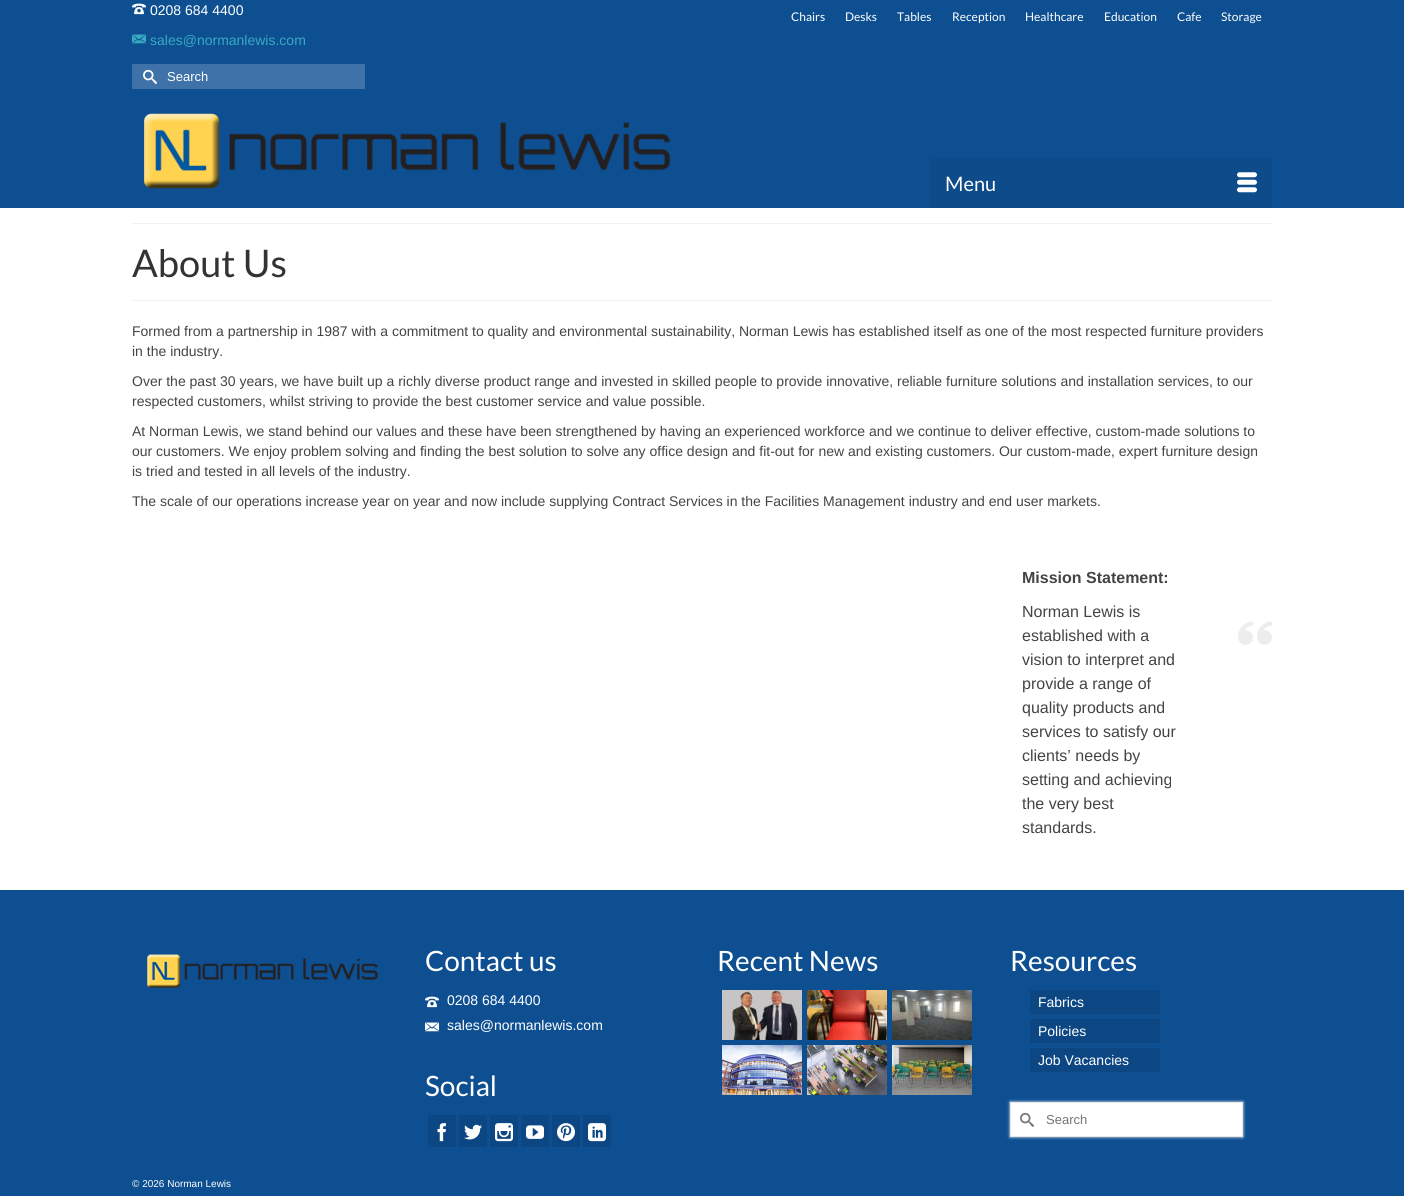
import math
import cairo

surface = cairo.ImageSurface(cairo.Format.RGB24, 1404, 1196)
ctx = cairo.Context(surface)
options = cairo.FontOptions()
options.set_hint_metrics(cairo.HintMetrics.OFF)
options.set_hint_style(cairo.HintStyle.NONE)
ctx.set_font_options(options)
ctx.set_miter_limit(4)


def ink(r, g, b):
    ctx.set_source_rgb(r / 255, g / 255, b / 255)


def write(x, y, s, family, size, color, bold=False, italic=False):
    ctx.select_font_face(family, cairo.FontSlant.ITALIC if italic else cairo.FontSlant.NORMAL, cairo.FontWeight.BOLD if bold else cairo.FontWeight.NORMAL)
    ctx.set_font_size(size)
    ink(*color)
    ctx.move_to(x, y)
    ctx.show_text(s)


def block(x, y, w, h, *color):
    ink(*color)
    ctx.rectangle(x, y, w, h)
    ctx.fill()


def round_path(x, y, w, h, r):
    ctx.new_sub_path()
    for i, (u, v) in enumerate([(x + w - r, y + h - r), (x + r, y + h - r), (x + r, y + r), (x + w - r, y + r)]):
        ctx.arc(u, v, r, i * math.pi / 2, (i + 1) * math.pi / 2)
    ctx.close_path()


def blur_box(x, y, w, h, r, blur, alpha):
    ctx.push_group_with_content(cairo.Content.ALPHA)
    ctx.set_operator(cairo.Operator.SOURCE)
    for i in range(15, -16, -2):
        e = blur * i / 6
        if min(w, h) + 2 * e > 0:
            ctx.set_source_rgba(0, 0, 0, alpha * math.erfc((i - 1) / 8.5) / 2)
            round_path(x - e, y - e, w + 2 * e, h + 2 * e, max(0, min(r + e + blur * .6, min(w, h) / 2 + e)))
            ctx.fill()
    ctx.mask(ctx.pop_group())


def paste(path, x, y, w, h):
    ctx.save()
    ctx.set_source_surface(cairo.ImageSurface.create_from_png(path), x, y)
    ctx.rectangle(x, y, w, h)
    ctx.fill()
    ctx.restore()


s1 = dict(family="Liberation Sans", size=14, color=(255, 255, 255))
s2 = dict(family="Liberation Sans", size=14, color=(54, 170, 193))
s3 = dict(family="Liberation Sans", size=13, color=(255, 255, 255))
s4 = dict(family="Lato", size=12, color=(255, 255, 255))
s5 = dict(family="Lato", size=20, color=(255, 255, 255))
s6 = dict(family="Lato", size=38, color=(51, 51, 51))
s7 = dict(family="Liberation Sans", size=14, color=(68, 68, 68))
s8 = dict(family="Liberation Sans", size=16, color=(68, 68, 68), bold=True)
s9 = dict(family="Liberation Sans", size=16, color=(68, 68, 68))
s10 = dict(family="Lato", size=28, color=(255, 255, 255))
s11 = dict(family="Liberation Sans", size=13, color=(117, 117, 117))
s12 = dict(family="Liberation Sans", size=10, color=(255, 255, 255))

ink(255, 255, 255)
ctx.paint()
block(0, 0, 1404, 208, 14, 79, 146)
paste("pic1.png", 132, 3, 14, 12)
write(150, 15, "0208 684 4400", **s1)
paste("pic2.png", 132, 34, 14, 10)
write(150, 45, "sales@normanlewis.com", **s2)
block(132, 64, 233, 25, 62, 114, 168)
paste("pic3.png", 143, 69, 14, 15)
write(167, 81, "Search", **s3)
write(791, 21, "Chairs", **s4)
write(845, 21, "Desks", **s4)
write(897, 21, "Tables", **s4)
write(952, 21, "Reception", **s4)
write(1025, 21, "Healthcare", **s4)
write(1104, 21, "Education", **s4)
write(1177, 21, "Cafe", **s4)
write(1221, 21, "Storage", **s4)
paste("pic4.png", 144, 113, 527, 76)
block(930, 158, 342, 50, 13, 75, 139)
write(945, 191, "Menu", **s5)
paste("pic5.png", 1237, 172, 20, 21)
block(132, 223, 1140, 1, 242, 242, 242)
block(132, 300, 1140, 1, 242, 242, 242)
write(132, 277, "About Us", **s6)
write(132, 336, "Formed from a partnership in 1987 with a commitment to quality and environmental sustainability, Norman Lewis has established itself as one of the most respected furniture providers", **s7)
write(132, 356, "in the industry.", **s7)
write(132, 386, "Over the past 30 years, we have built up a richly diverse product range and invested in skilled people to provide innovative, reliable furniture solutions and installation services, to our", **s7)
write(132, 406, "respected customers, whilst striving to provide the best customer service and value possible.", **s7)
write(132, 436, "At Norman Lewis, we stand behind our values and these have been strengthened by having an experienced workforce and we continue to deliver effective, custom-made solutions to", **s7)
write(132, 456, "our customers. We enjoy problem solving and finding the best solution to solve any office design and fit-out for new and existing customers. Our custom-made, expert furniture design", **s7)
write(132, 476, "is tried and tested in all levels of the industry.", **s7)
write(132, 506, "The scale of our operations increase year on year and now include supplying Contract Services in the Facilities Management industry and end user markets.", **s7)
write(1022, 583, "Mission Statement:", **s8)
write(1022, 617, "Norman Lewis is", **s9)
write(1022, 641, "established with a", **s9)
write(1022, 665, "vision to interpret and", **s9)
write(1022, 689, "provide a range of", **s9)
write(1022, 713, "quality products and", **s9)
write(1022, 737, "services to satisfy our", **s9)
write(1022, 761, "clients’ needs by", **s9)
write(1022, 785, "setting and achieving", **s9)
write(1022, 809, "the very best", **s9)
write(1022, 833, "standards.", **s9)
paste("pic6.png", 1238, 621, 34, 24)
block(0, 890, 1404, 306, 14, 79, 146)
paste("pic7.png", 147, 954, 231, 34)
write(425, 971, "Contact us", **s10)
paste("pic1.png", 425, 996, 14, 12)
write(447, 1005, "0208 684 4400", **s1)
paste("pic8.png", 425, 1022, 14, 10)
write(447, 1030, "sales@normanlewis.com", **s1)
write(425, 1096, "Social", **s10)
block(428, 1115, 28, 32, 13, 71, 131)
paste("pic9.png", 437, 1123, 9, 19)
block(459, 1115, 28, 32, 13, 71, 131)
paste("pic10.png", 464, 1124, 18, 16)
block(490, 1115, 28, 32, 13, 71, 131)
paste("pic11.png", 495, 1123, 18, 19)
block(521, 1115, 28, 32, 13, 71, 131)
paste("pic12.png", 526, 1125, 18, 14)
block(552, 1115, 28, 32, 13, 71, 131)
paste("pic13.png", 557, 1123, 18, 19)
block(583, 1115, 28, 32, 13, 71, 131)
paste("pic14.png", 588, 1123, 18, 19)
write(717, 971, "Recent News", **s10)
paste("pic15.png", 722, 990, 80, 50)
paste("pic16.png", 807, 990, 80, 50)
paste("pic17.png", 892, 990, 80, 50)
paste("pic18.png", 722, 1045, 80, 50)
paste("pic19.png", 807, 1045, 80, 50)
paste("pic20.png", 892, 1045, 80, 50)
write(1010, 971, "Resources", **s10)
block(1030, 990, 130, 24, 13, 71, 131)
write(1038, 1007, "Fabrics", **s1)
block(1030, 1019, 130, 24, 13, 71, 131)
write(1038, 1036, "Policies", **s1)
block(1030, 1048, 130, 24, 13, 71, 131)
write(1038, 1065, "Job Vacancies", **s1)
ink(255, 255, 255)
blur_box(1010, 1102, 233, 35, 0, 1.5, 1)
ink(255, 255, 255)
ctx.rectangle(1010.5, 1102.5, 232, 34)
ctx.fill_preserve()
ink(231, 231, 231)
ctx.set_line_width(1)
ctx.stroke()
paste("pic21.png", 1020, 1112, 14, 15)
write(1046, 1124, "Search", **s11)
write(132, 1187, "© 2026 Norman Lewis", **s12)
surface.write_to_png("screenshot.png")
